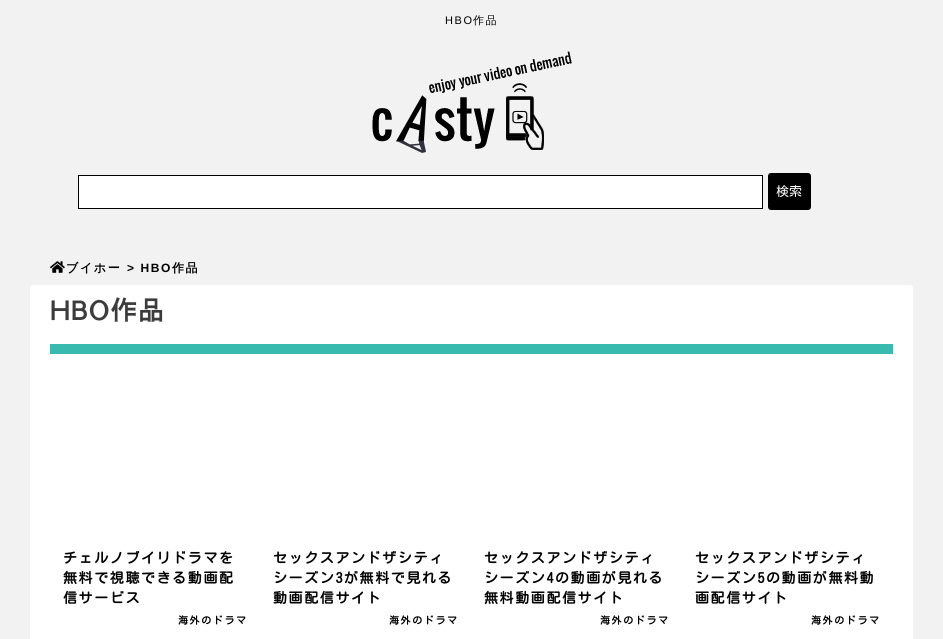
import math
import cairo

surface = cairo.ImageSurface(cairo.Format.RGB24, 943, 639)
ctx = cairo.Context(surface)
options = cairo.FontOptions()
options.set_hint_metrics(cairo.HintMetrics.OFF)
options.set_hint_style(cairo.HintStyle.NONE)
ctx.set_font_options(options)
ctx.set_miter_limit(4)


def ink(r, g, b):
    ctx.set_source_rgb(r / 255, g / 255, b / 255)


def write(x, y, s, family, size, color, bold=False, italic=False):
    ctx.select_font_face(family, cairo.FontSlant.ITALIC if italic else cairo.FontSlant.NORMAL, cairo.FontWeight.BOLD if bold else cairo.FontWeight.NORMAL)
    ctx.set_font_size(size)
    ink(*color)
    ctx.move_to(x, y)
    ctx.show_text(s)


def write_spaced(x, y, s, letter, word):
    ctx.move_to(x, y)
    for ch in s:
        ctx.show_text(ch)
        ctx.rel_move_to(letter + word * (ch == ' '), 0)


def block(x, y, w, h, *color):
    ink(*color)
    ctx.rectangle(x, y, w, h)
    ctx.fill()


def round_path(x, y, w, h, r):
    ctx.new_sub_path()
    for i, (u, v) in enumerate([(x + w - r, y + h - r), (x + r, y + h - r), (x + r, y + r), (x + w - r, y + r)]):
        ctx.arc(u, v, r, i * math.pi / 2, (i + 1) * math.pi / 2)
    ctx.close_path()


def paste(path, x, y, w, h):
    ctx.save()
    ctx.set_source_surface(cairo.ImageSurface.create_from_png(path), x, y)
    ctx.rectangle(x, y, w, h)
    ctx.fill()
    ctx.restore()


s1 = dict(family="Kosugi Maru", size=13, color=(255, 255, 255))

ink(242, 242, 242)
ctx.paint()
ctx.select_font_face("Liberation Sans")
ctx.set_font_size(11)
ink(0, 0, 0)
write_spaced(445, 24, "HBO", 1.6, 0)
ctx.select_font_face("WenQuanYi Zen Hei Medium")
write_spaced(473, 24, "作品", 1.6, 0)
paste("pic1.png", 372, 51, 200, 102)
ink(255, 255, 255)
ctx.rectangle(78.5, 175.5, 684, 33)
ctx.fill_preserve()
ink(0, 0, 0)
ctx.set_line_width(1)
ctx.stroke()
round_path(768, 173, 43, 37, 3)
ctx.fill()
write(776, 196, "検索", **s1)
paste("pic2.png", 50, 261, 15, 12)
ctx.select_font_face("WenQuanYi Zen Hei", cairo.FontSlant.NORMAL, cairo.FontWeight.BOLD)
ctx.set_font_size(12)
ink(0, 0, 0)
write_spaced(66, 272, "ブイホー", 1.6, 0)
ctx.select_font_face("Liberation Sans", cairo.FontSlant.NORMAL, cairo.FontWeight.BOLD)
write_spaced(127, 272, "> HBO", 1.6, 0)
ctx.select_font_face("WenQuanYi Zen Hei", cairo.FontSlant.NORMAL, cairo.FontWeight.BOLD)
write_spaced(172, 272, "作品", 1.6, 0)
ink(255, 255, 255)
round_path(30, 285, 883, 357, 3)
ctx.fill()
block(50, 344, 843, 10, 56, 186, 174)
ctx.select_font_face("Sawarabi Gothic", cairo.FontSlant.NORMAL, cairo.FontWeight.BOLD)
ctx.set_font_size(26)
ink(60, 60, 60)
write_spaced(50, 320, "HBO作品", 1.6, 0)
ctx.select_font_face("Kosugi Maru", cairo.FontSlant.NORMAL, cairo.FontWeight.BOLD)
ctx.set_font_size(14)
ink(0, 0, 0)
write_spaced(63, 563, "チェルノブイリドラマを", 1.6, 0)
write_spaced(63, 583, "無料で視聴できる動画配", 1.6, 0)
write_spaced(63, 603, "信サービス", 1.6, 0)
ctx.set_font_size(10)
write_spaced(178, 624, "海外のドラマ", 1.6, 0)
ctx.set_font_size(14)
write_spaced(273, 563, "セックスアンドザシティ", 1.6, 0)
write_spaced(273, 583, "シーズン3が無料で見れる", 1.6, 0)
write_spaced(273, 603, "動画配信サイト", 1.6, 0)
ctx.set_font_size(10)
write_spaced(389, 624, "海外のドラマ", 1.6, 0)
ctx.set_font_size(14)
write_spaced(484, 563, "セックスアンドザシティ", 1.6, 0)
write_spaced(484, 583, "シーズン4の動画が見れる", 1.6, 0)
write_spaced(484, 603, "無料動画配信サイト", 1.6, 0)
ctx.set_font_size(10)
write_spaced(600, 624, "海外のドラマ", 1.6, 0)
ctx.set_font_size(14)
write_spaced(695, 563, "セックスアンドザシティ", 1.6, 0)
write_spaced(695, 583, "シーズン5の動画が無料動", 1.6, 0)
write_spaced(695, 603, "画配信サイト", 1.6, 0)
ctx.set_font_size(10)
write_spaced(811, 624, "海外のドラマ", 1.6, 0)
surface.write_to_png("screenshot.png")
